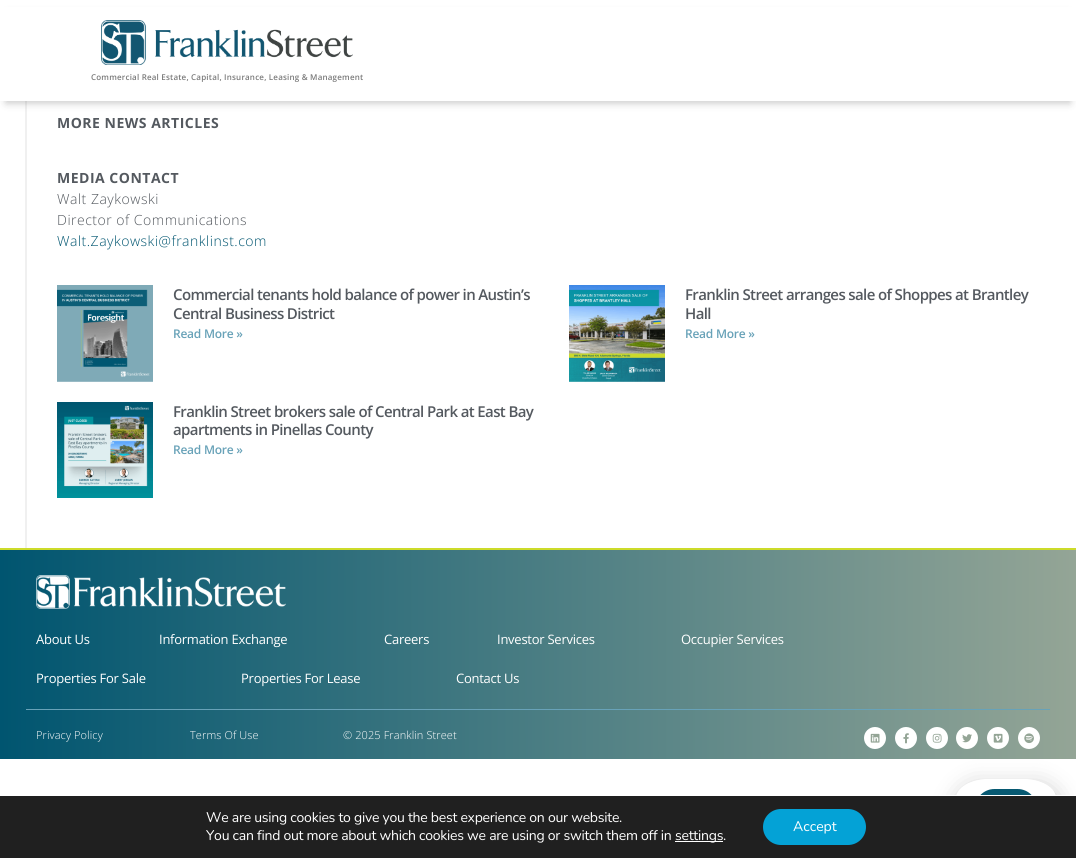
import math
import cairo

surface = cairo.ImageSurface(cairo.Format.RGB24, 1076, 858)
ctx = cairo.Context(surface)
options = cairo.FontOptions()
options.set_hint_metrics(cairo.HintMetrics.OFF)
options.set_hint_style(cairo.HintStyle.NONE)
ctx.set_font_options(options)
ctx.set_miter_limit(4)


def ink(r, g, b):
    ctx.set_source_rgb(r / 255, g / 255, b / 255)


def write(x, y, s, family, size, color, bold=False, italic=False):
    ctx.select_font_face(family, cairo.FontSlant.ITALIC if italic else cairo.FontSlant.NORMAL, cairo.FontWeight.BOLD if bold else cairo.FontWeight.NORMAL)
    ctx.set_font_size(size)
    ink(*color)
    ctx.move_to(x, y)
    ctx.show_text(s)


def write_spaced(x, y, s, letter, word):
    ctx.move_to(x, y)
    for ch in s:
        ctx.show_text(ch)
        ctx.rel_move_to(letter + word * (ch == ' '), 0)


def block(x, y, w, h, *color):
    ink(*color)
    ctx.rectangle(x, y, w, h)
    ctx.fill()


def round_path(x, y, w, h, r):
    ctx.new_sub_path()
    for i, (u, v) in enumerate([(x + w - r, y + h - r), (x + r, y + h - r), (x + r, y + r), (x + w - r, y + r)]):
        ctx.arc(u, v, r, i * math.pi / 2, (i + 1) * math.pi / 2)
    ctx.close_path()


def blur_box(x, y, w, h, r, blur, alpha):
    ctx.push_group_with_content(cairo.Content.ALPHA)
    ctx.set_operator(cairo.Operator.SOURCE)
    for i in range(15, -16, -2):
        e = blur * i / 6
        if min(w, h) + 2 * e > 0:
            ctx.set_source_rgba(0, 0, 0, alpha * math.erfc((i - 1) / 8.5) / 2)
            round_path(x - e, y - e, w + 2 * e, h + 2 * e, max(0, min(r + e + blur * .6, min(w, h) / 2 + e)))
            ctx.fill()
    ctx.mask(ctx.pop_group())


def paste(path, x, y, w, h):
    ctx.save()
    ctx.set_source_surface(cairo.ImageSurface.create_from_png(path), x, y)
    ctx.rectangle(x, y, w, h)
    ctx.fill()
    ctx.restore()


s1 = dict(family="Nunito", size=14, color=(255, 255, 255))

ink(255, 255, 255)
ctx.paint()
block(25, 101, 2, 447, 240, 240, 240)
ink(0, 0, 0)
blur_box(6, 14, 1064, 89, 0, 4, 0.22)
block(0, 7, 1076, 94, 255, 255, 255)
paste("pic1.png", 101, 20, 252, 45)
ctx.select_font_face("Open Sans SemiBold")
ctx.set_font_size(8)
ink(122, 122, 122)
write_spaced(91, 80, "Commercial Real Estate, Capital, Insurance, Leasing & Management", 0.2, 0)
ctx.select_font_face("Open Sans", cairo.FontSlant.NORMAL, cairo.FontWeight.BOLD)
ctx.set_font_size(14)
ink(84, 89, 95)
write_spaced(57, 128, "MORE NEWS ARTICLES", 0.5, 0)
write_spaced(57, 183, "MEDIA CONTACT", 0.5, 0)
ctx.select_font_face("Open Sans Light")
write_spaced(57, 204, "Walt Zaykowski", 0.5, 0)
write_spaced(57, 225, "Director of Communications", 0.5, 0)
ink(0, 85, 112)
write_spaced(57, 246, "Walt.Zaykowski@franklinst.com", 0.5, 0)
paste("pic2.png", 57, 285, 96, 97)
ctx.select_font_face("Open Sans SemiBold")
ctx.set_font_size(15)
ink(84, 89, 95)
write_spaced(173, 300, "Commercial tenants hold balance of power in Austin’s", -0.62, 0)
write_spaced(173, 319, "Central Business District", -0.62, 0)
ctx.set_font_size(12)
ink(104, 162, 184)
write_spaced(173, 338, "Read More »", -0.25, 0)
paste("pic3.png", 569, 285, 96, 97)
ctx.set_font_size(15)
ink(84, 89, 95)
write_spaced(685, 300, "Franklin Street arranges sale of Shoppes at Brantley", -0.62, 0)
write_spaced(685, 319, "Hall", -0.62, 0)
ctx.set_font_size(12)
ink(104, 162, 184)
write_spaced(685, 338, "Read More »", -0.25, 0)
paste("pic4.png", 57, 402, 96, 96)
ctx.set_font_size(15)
ink(84, 89, 95)
write_spaced(173, 417, "Franklin Street brokers sale of Central Park at East Bay", -0.62, 0)
write_spaced(173, 435, "apartments in Pinellas County", -0.62, 0)
ctx.set_font_size(12)
ink(104, 162, 184)
write_spaced(173, 454, "Read More »", -0.25, 0)
ctx.save()
ctx.set_fill_rule(cairo.FillRule.EVEN_ODD)
ctx.new_path()
ctx.move_to(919, 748)
ctx.line_to(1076, 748)
ctx.line_to(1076, 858)
ctx.line_to(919, 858)
ctx.close_path()
ctx.move_to(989, 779)
ctx.line_to(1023, 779)
ctx.curve_to(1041, 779, 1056, 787.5, 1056, 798.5)
ctx.line_to(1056, 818.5)
ctx.curve_to(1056, 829.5, 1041, 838, 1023, 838)
ctx.line_to(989, 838)
ctx.curve_to(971, 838, 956, 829.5, 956, 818.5)
ctx.line_to(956, 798.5)
ctx.curve_to(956, 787.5, 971, 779, 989, 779)
ctx.close_path()
ctx.clip()
ink(0, 0, 0)
blur_box(955, 784, 106, 65, 22, 11.5, 0.2)
ctx.restore()
gradient = cairo.LinearGradient(1076, 654, 0, 655)
gradient.add_color_stop_rgba(0, 0.58, 0.647, 0.588, 1)
gradient.add_color_stop_rgba(1, 0, 0.333, 0.439, 1)
ctx.set_source(gradient)
ctx.rectangle(0, 550, 1076, 209)
ctx.fill()
block(0, 548, 1076, 2, 204, 219, 42)
paste("pic5.png", 36, 575, 250, 34)
ctx.select_font_face("Open Sans")
ctx.set_font_size(13)
ink(255, 255, 255)
write_spaced(36, 644, "About Us", -0.25, 0)
write_spaced(159, 644, "Information Exchange", -0.25, 0)
write_spaced(384, 644, "Careers", -0.25, 0)
write_spaced(497, 644, "Investor Services", -0.25, 0)
write_spaced(681, 644, "Occupier Services", -0.25, 0)
write_spaced(36, 683, "Properties For Sale", -0.25, 0)
write_spaced(241, 683, "Properties For Lease", -0.25, 0)
write_spaced(456, 683, "Contact Us", -0.25, 0)
block(26, 709, 1024, 1, 104, 162, 184)
ctx.select_font_face("Open Sans Light")
ctx.set_font_size(11)
ink(255, 255, 255)
write_spaced(36, 739, "Privacy Policy", 0.1, 0)
write_spaced(190, 739, "Terms Of Use", 0.1, 0)
write_spaced(343, 739, "© 2025 Franklin Street", 0.1, 0)
ctx.new_path()
ctx.arc(875, 738, 11, 0, 2 * math.pi)
ctx.fill()
paste("pic6.png", 870, 733, 10, 10)
ctx.arc(906, 738, 11, 0, 2 * math.pi)
ctx.fill()
paste("pic7.png", 903, 733, 6, 11)
ctx.arc(937, 738, 11, 0, 2 * math.pi)
ctx.fill()
paste("pic8.png", 932, 733, 10, 10)
ctx.arc(967, 738, 11, 0, 2 * math.pi)
ctx.fill()
paste("pic9.png", 962, 734, 10, 9)
ctx.arc(998, 738, 11, 0, 2 * math.pi)
ctx.fill()
paste("pic10.png", 993, 733, 10, 10)
ctx.arc(1029, 738, 11, 0, 2 * math.pi)
ctx.fill()
paste("pic11.png", 1024, 733, 10, 11)
ink(7, 89, 114)
round_path(975, 789, 62, 39, 19.5)
ctx.fill()
block(0, 796, 1076, 62, 32, 32, 32)
block(939, 795, 137, 1, 255, 255, 255)
ctx.select_font_face("Nunito")
ctx.set_font_size(14)
write_spaced(206, 822, "We are using cookies to give you the best experience on our website.", -0.25, 0)
write_spaced(206, 840, "You can find out more about which cookies we are using or switch them off in", -0.25, 0)
block(675, 841, 48, 1, 255, 255, 255)
write_spaced(675, 840, "settings.", -0.25, 0)
ink(4, 162, 214)
round_path(763, 809, 103, 36, 18)
ctx.fill()
write(793, 831, "Accept", **s1)
surface.write_to_png("screenshot.png")
